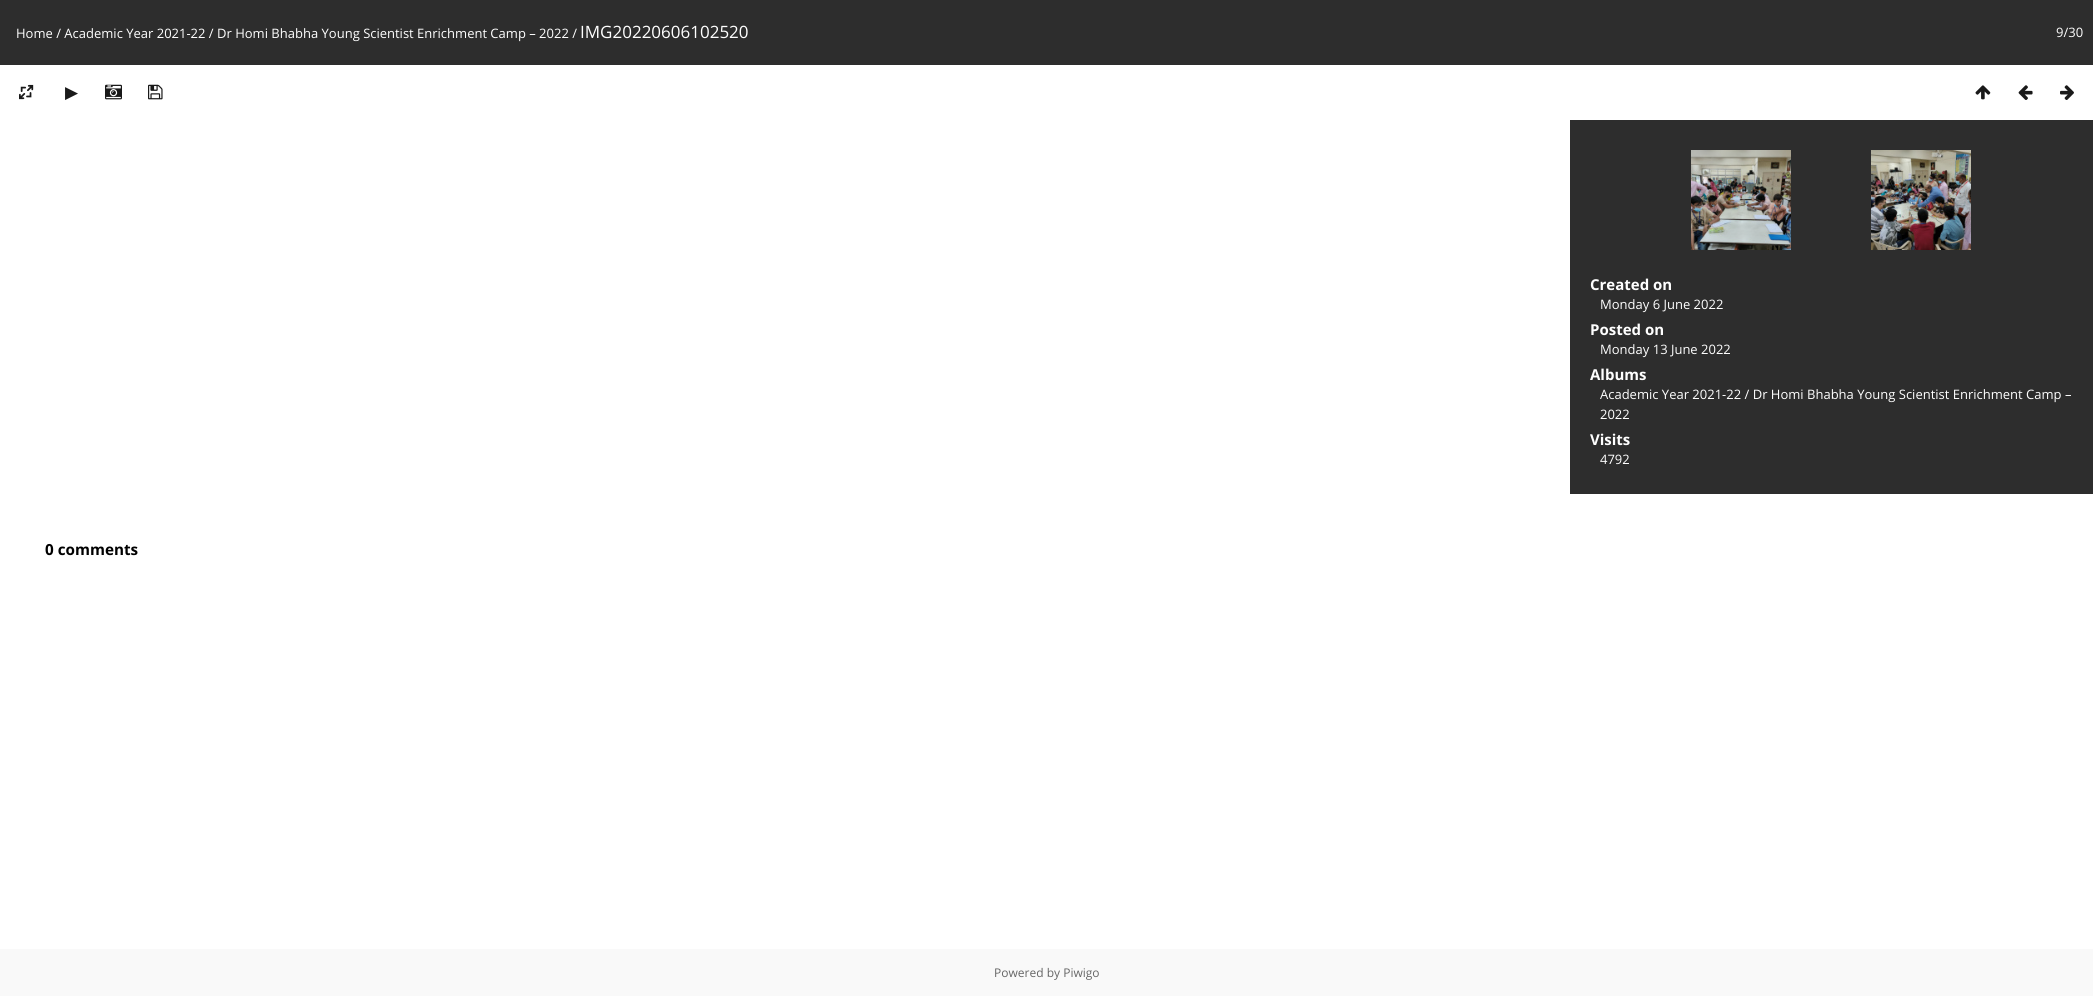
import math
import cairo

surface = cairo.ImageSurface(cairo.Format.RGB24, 2093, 996)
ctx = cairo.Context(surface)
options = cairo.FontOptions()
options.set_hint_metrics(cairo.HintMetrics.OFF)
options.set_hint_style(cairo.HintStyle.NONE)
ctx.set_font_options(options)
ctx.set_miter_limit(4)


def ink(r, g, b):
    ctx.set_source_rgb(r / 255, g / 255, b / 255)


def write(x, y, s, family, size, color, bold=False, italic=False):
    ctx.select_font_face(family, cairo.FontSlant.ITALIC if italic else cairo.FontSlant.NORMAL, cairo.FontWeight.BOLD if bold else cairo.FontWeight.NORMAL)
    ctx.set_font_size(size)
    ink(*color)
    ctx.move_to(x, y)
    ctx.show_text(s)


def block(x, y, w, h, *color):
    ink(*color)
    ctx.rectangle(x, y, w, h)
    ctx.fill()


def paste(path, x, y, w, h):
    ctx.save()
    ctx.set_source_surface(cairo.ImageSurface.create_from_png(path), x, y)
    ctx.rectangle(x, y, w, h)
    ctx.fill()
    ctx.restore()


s1 = dict(family="Open Sans", size=13, color=(255, 255, 255))
s2 = dict(family="Open Sans", size=17, color=(255, 255, 255))
s3 = dict(family="DejaVu Sans", size=17, color=(26, 26, 26))
s4 = dict(family="Open Sans", size=15, color=(255, 255, 255), bold=True)
s5 = dict(family="Open Sans", size=15.25, color=(0, 0, 0), bold=True)
s6 = dict(family="Open Sans", size=12, color=(102, 102, 102))

ink(255, 255, 255)
ctx.paint()
block(0, 0, 2093, 65, 45, 45, 45)
write(16, 38, "Home / Academic Year 2021-22 / Dr Homi Bhabha Young Scientist Enrichment Camp – 2022 /", **s1)
write(580, 38, "IMG20220606102520", **s2)
write(2056, 37, "9/30", **s1)
paste("pic1.png", 19, 84, 15, 16)
write(65, 98, "▶", **s3)
paste("pic2.png", 105, 84, 17, 16)
paste("pic3.png", 148, 84, 15, 16)
paste("pic4.png", 1975, 85, 16, 15)
paste("pic5.png", 2018, 85, 15, 15)
paste("pic6.png", 2060, 85, 14, 15)
block(1570, 120, 523, 374, 45, 45, 45)
paste("pic7.png", 1691, 150, 100, 100)
paste("pic8.png", 1871, 150, 100, 100)
write(1590, 290, "Created on", **s4)
write(1600, 309, "Monday 6 June 2022", **s1)
write(1590, 335, "Posted on", **s4)
write(1600, 354, "Monday 13 June 2022", **s1)
write(1590, 380, "Albums", **s4)
write(1600, 399, "Academic Year 2021-22 / Dr Homi Bhabha Young Scientist Enrichment Camp –", **s1)
write(1600, 419, "2022", **s1)
write(1590, 445, "Visits", **s4)
write(1600, 464, "4792", **s1)
write(45, 555, "0 comments", **s5)
block(0, 949, 2093, 47, 249, 249, 249)
write(994, 977, "Powered by Piwigo", **s6)
surface.write_to_png("screenshot.png")
